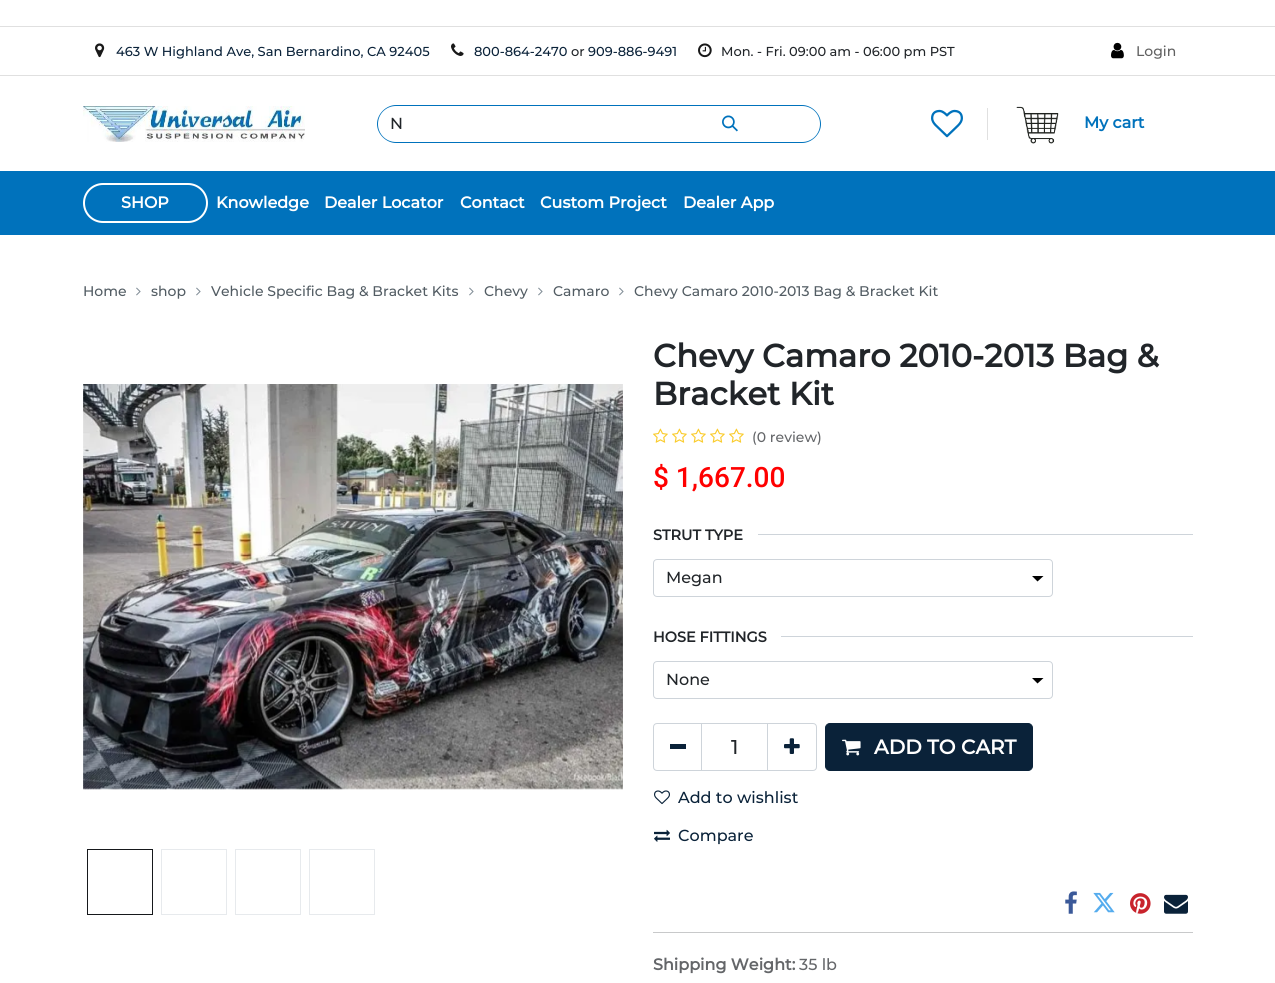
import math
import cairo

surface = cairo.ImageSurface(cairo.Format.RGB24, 1275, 983)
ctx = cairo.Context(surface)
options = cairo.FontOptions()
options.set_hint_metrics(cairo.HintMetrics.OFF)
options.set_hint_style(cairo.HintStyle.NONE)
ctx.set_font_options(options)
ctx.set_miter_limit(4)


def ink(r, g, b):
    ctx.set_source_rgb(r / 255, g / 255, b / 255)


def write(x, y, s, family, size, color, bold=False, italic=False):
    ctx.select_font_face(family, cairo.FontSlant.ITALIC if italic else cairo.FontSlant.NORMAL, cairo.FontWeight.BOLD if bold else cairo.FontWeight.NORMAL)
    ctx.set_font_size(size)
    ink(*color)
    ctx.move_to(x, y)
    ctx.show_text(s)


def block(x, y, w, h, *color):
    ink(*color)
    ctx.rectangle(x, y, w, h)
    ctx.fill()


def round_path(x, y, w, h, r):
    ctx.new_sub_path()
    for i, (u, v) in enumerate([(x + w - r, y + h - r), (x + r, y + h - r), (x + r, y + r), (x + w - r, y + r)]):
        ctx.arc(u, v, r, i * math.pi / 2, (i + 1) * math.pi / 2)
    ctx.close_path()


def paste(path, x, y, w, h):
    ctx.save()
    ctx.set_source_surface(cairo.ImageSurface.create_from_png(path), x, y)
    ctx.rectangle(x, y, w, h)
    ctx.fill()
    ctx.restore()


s1 = dict(family="Montserrat Medium", size=13, color=(10, 34, 57))
s2 = dict(family="Montserrat Medium", size=13, color=(33, 37, 41))
s3 = dict(family="Montserrat Medium", size=14, color=(97, 97, 97))
s4 = dict(family="Montserrat Medium", size=16, color=(33, 37, 41))
s5 = dict(family="Montserrat", size=16, color=(0, 114, 188), bold=True)
s6 = dict(family="Montserrat", size=16, color=(255, 255, 255), bold=True)
s7 = dict(family="Montserrat Medium", size=14, color=(82, 92, 99))
s8 = dict(family="Montserrat", size=32, color=(33, 37, 41), bold=True)
s9 = dict(family="Montserrat Medium", size=14, color=(100, 102, 105))
s10 = dict(family="Roboto Medium", size=28, color=(255, 0, 0))
s11 = dict(family="Montserrat", size=14.5, color=(33, 37, 41), bold=True)
s12 = dict(family="Montserrat Medium", size=20, color=(33, 37, 41))
s13 = dict(family="Montserrat", size=20, color=(255, 255, 255), bold=True)
s14 = dict(family="Montserrat Medium", size=16, color=(10, 34, 57))
s15 = dict(family="Montserrat", size=16, color=(100, 102, 105), bold=True)
s16 = dict(family="Montserrat Medium", size=16, color=(100, 102, 105))

ink(255, 255, 255)
ctx.paint()
block(0, 26, 1275, 1, 224, 224, 224)
block(0, 75, 1275, 1, 224, 224, 224)
paste("pic1.png", 95, 43, 10, 15)
write(116, 56, "463 W Highland Ave, San Bernardino, CA 92405", **s1)
paste("pic2.png", 451, 43, 13, 13)
write(474, 56, "800-864-2470", **s1)
write(571, 56, "or", **s2)
write(588, 56, "909-886-9491", **s1)
paste("pic3.png", 698, 43, 14, 15)
write(721, 56, "Mon. - Fri. 09:00 am - 06:00 pm PST", **s2)
paste("pic4.png", 1111, 42, 13, 17)
write(1136, 56, "Login", **s3)
paste("pic5.png", 83, 106, 222, 36)
ink(0, 114, 188)
ctx.set_fill_rule(cairo.FillRule.EVEN_ODD)
ctx.new_path()
ctx.move_to(396, 105)
ctx.line_to(711, 105)
ctx.line_to(711, 143)
ctx.line_to(396, 143)
ctx.curve_to(386, 143, 377, 134, 377, 124)
ctx.curve_to(377, 114, 386, 105, 396, 105)
ctx.close_path()
ctx.move_to(396, 106)
ctx.line_to(711, 106)
ctx.line_to(711, 142)
ctx.line_to(396, 142)
ctx.curve_to(386, 142, 378, 134, 378, 124)
ctx.curve_to(378, 114, 386, 106, 396, 106)
ctx.close_path()
ctx.fill()
write(390, 129, "N", **s4)
ink(0, 114, 188)
ctx.new_path()
ctx.move_to(710, 105)
ctx.line_to(802, 105)
ctx.curve_to(812, 105, 821, 114, 821, 124)
ctx.curve_to(821, 134, 812, 143, 802, 143)
ctx.line_to(710, 143)
ctx.close_path()
ctx.move_to(710, 106)
ctx.line_to(802, 106)
ctx.curve_to(812, 106, 820, 114, 820, 124)
ctx.curve_to(820, 134, 812, 142, 802, 142)
ctx.line_to(710, 142)
ctx.close_path()
ctx.fill()
paste("pic6.png", 722, 115, 16, 17)
paste("pic7.png", 931, 109, 32, 29)
block(987, 108, 1, 32, 224, 224, 224)
paste("pic8.png", 1016, 106, 43, 38)
write(1084, 128, "My cart", **s5)
block(0, 171, 1275, 64, 0, 114, 188)
round_path(84, 184, 123, 38, 19)
ink(255, 255, 255)
ctx.stroke()
write(121, 208, "SHOP", **s6)
write(216, 208, "Knowledge", **s6)
write(324, 208, "Dealer Locator", **s6)
write(460, 208, "Contact", **s6)
write(540, 208, "Custom Project", **s6)
write(683, 208, "Dealer App", **s6)
write(83, 296, "Home", **s7)
paste("pic9.png", 136, 287, 5, 9)
write(151, 296, "shop", **s7)
paste("pic9.png", 196, 287, 5, 9)
write(211, 296, "Vehicle Specific Bag & Bracket Kits", **s7)
paste("pic9.png", 469, 287, 5, 9)
write(484, 296, "Chevy", **s7)
paste("pic9.png", 538, 287, 5, 9)
write(553, 296, "Camaro", **s7)
paste("pic9.png", 619, 287, 5, 9)
write(634, 296, "Chevy Camaro 2010-2013 Bag & Bracket Kit", **s7)
paste("pic10.png", 83, 384, 540, 406)
ctx.rectangle(87.5, 849.5, 65, 65)
ink(22, 24, 27)
ctx.set_line_width(1)
ctx.stroke()
ctx.rectangle(161.5, 849.5, 65, 65)
ink(231, 234, 237)
ctx.stroke()
ctx.rectangle(235.5, 849.5, 65, 65)
ctx.stroke()
ctx.rectangle(309.5, 849.5, 65, 65)
ctx.stroke()
write(653, 367, "Chevy Camaro 2010-2013 Bag &", **s8)
write(653, 405, "Bracket Kit", **s8)
paste("pic11.png", 653, 428, 15, 15)
paste("pic11.png", 672, 428, 15, 15)
paste("pic11.png", 691, 428, 15, 15)
paste("pic11.png", 710, 428, 15, 15)
paste("pic11.png", 729, 428, 15, 15)
write(752, 442, "(0 review)", **s9)
write(653, 487, "$ 1,667.00", **s10)
write(653, 540, "STRUT TYPE", **s11)
block(758, 534, 435, 1, 206, 212, 218)
ink(0, 0, 0)
ctx.set_fill_rule(cairo.FillRule.WINDING)
ctx.new_path()
ctx.move_to(1032, 576)
ctx.line_to(1043.5, 576)
ctx.line_to(1037.5, 581.5)
ctx.close_path()
ctx.fill()
round_path(653.5, 559.5, 399, 37, 3.5)
ink(206, 212, 218)
ctx.stroke()
write(666, 583, "Megan", **s4)
write(653, 642, "HOSE FITTINGS", **s11)
block(781, 636, 412, 1, 206, 212, 218)
ink(0, 0, 0)
ctx.new_path()
ctx.move_to(1032, 678)
ctx.line_to(1043.5, 678)
ctx.line_to(1037.5, 683.5)
ctx.close_path()
ctx.fill()
round_path(653.5, 661.5, 399, 37, 3.5)
ink(206, 212, 218)
ctx.stroke()
write(666, 685, "None", **s4)
ctx.rectangle(701.5, 723.5, 66, 47)
ink(206, 212, 218)
ctx.stroke()
ctx.new_path()
ctx.move_to(657, 723.5)
ctx.line_to(701.5, 723.5)
ctx.line_to(701.5, 770.5)
ctx.line_to(657, 770.5)
ctx.curve_to(655, 770.5, 653.5, 769, 653.5, 767)
ctx.line_to(653.5, 727)
ctx.curve_to(653.5, 725, 655, 723.5, 657, 723.5)
ctx.close_path()
ctx.stroke()
block(670, 744, 16, 5, 10, 34, 57)
write(731, 754, "1", **s12)
ctx.new_path()
ctx.move_to(767.5, 723.5)
ctx.line_to(813, 723.5)
ctx.curve_to(815, 723.5, 816.5, 725, 816.5, 727)
ctx.line_to(816.5, 767)
ctx.curve_to(816.5, 769, 815, 770.5, 813, 770.5)
ctx.line_to(767.5, 770.5)
ctx.close_path()
ink(206, 212, 218)
ctx.stroke()
paste("pic12.png", 784, 738, 16, 16)
ink(10, 34, 57)
round_path(825.5, 723.5, 207, 47, 4.5)
ctx.fill_preserve()
ctx.stroke()
paste("pic13.png", 842, 739, 19, 17)
write(874, 754, "ADD TO CART", **s13)
paste("pic14.png", 654, 790, 16, 15)
write(678, 803, "Add to wishlist", **s14)
paste("pic15.png", 654, 829, 16, 13)
write(678, 841, "Compare", **s14)
paste("pic16.png", 1065, 891, 12, 23)
paste("pic17.png", 1093, 892, 22, 21)
paste("pic18.png", 1130, 893, 21, 21)
paste("pic19.png", 1164, 894, 24, 20)
block(653, 932, 540, 1, 200, 201, 202)
write(653, 970, "Shipping Weight:", **s15)
write(799, 970, "35 lb", **s16)
surface.write_to_png("screenshot.png")
